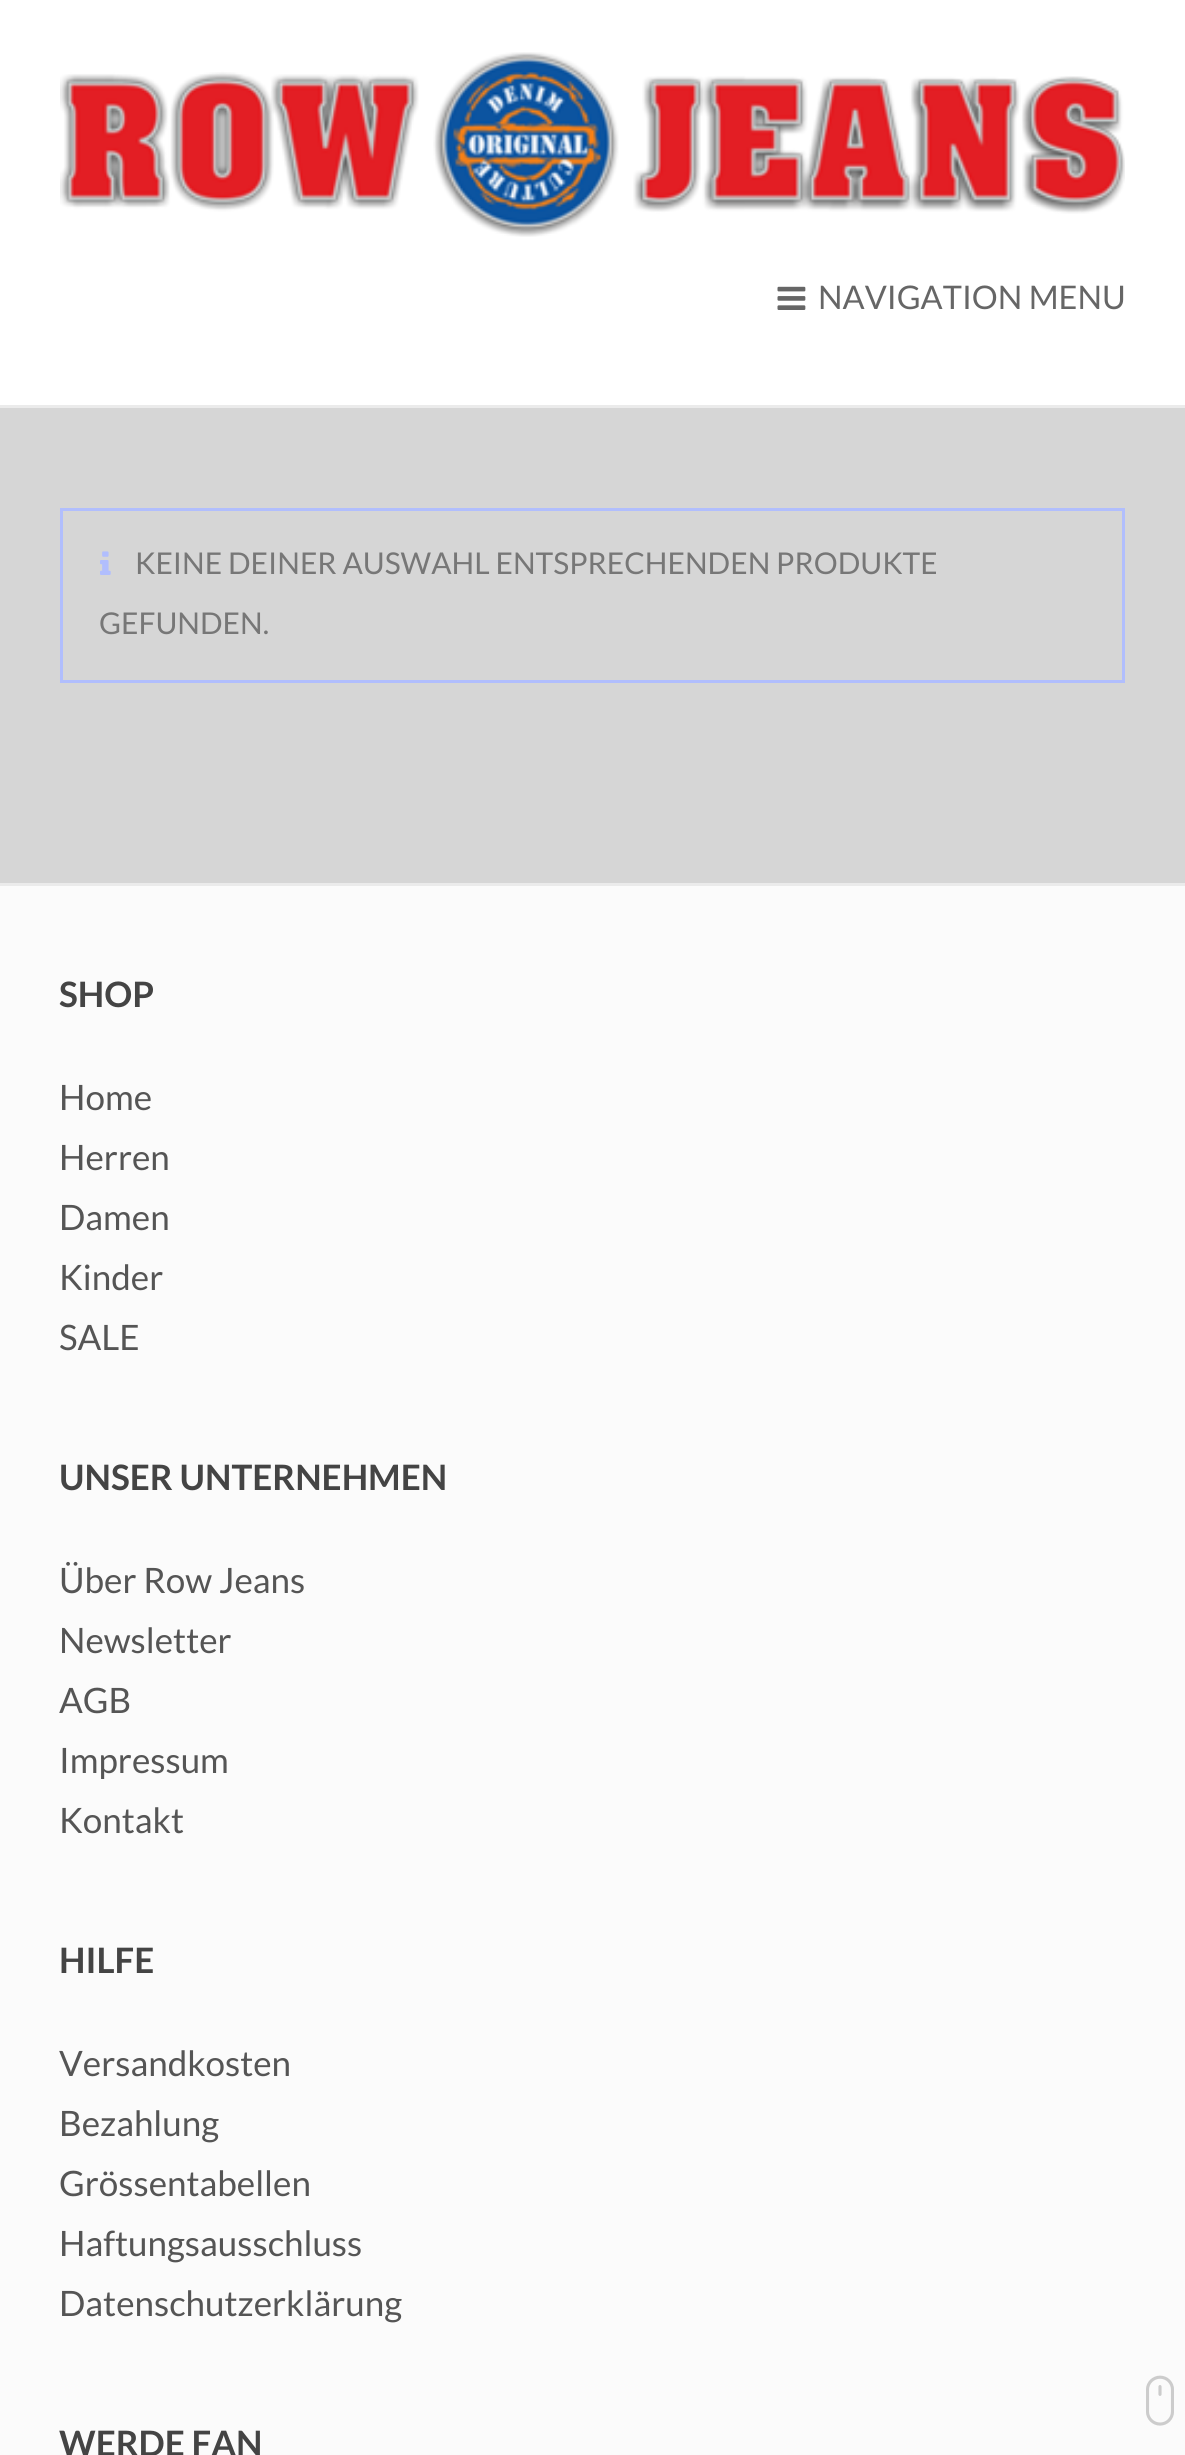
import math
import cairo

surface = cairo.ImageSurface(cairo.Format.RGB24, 1185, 2455)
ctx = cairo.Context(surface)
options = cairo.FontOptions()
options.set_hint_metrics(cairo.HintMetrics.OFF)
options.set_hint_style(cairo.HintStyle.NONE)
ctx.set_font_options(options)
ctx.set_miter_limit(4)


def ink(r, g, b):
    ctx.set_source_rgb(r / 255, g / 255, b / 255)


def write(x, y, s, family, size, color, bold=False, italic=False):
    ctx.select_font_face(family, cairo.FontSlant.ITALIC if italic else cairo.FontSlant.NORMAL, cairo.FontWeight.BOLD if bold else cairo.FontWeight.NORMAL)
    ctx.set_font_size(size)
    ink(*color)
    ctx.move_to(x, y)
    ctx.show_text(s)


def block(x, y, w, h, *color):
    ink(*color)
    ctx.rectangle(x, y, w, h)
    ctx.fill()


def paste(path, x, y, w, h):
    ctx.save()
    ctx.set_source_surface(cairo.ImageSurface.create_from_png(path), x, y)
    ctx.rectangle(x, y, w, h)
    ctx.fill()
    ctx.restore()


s1 = dict(family="Lato", size=32.5, color=(102, 102, 102))
s2 = dict(family="Lato", size=30, color=(119, 119, 119))
s3 = dict(family="Lato", size=35, color=(68, 68, 68), bold=True)
s4 = dict(family="Lato", size=35, color=(85, 85, 85))

ink(214, 214, 214)
ctx.paint()
block(0, 0, 1185, 405, 255, 255, 255)
block(0, 405, 1185, 3, 235, 235, 235)
paste("pic1.png", 60, 52, 1065, 185)
paste("pic2.png", 777, 286, 29, 24)
write(818, 309, "NAVIGATION MENU", **s1)
ctx.rectangle(61.5, 509.5, 1062, 172)
ink(177, 190, 253)
ctx.set_line_width(3)
ctx.stroke()
paste("pic3.png", 100, 551, 11, 24)
write(135, 574, "KEINE DEINER AUSWAHL ENTSPRECHENDEN PRODUKTE", **s2)
write(99, 634, "GEFUNDEN.", **s2)
block(0, 886, 1185, 1569, 251, 251, 251)
block(0, 883, 1185, 3, 235, 235, 235)
write(59, 1007, "SHOP", **s3)
write(59, 1110, "Home", **s4)
write(59, 1170, "Herren", **s4)
write(59, 1230, "Damen", **s4)
write(59, 1290, "Kinder", **s4)
write(59, 1350, "SALE", **s4)
write(59, 1490, "UNSER UNTERNEHMEN", **s3)
write(59, 1593, "Über Row Jeans", **s4)
write(59, 1653, "Newsletter", **s4)
write(59, 1713, "AGB", **s4)
write(59, 1773, "Impressum", **s4)
write(59, 1833, "Kontakt", **s4)
write(59, 1973, "HILFE", **s3)
write(59, 2076, "Versandkosten", **s4)
write(59, 2136, "Bezahlung", **s4)
write(59, 2196, "Grössentabellen", **s4)
write(59, 2256, "Haftungsausschluss", **s4)
write(59, 2316, "Datenschutzerklärung", **s4)
write(59, 2456, "WERDE FAN", **s3)
paste("pic4.png", 1146, 2375, 28, 51)
surface.write_to_png("screenshot.png")
